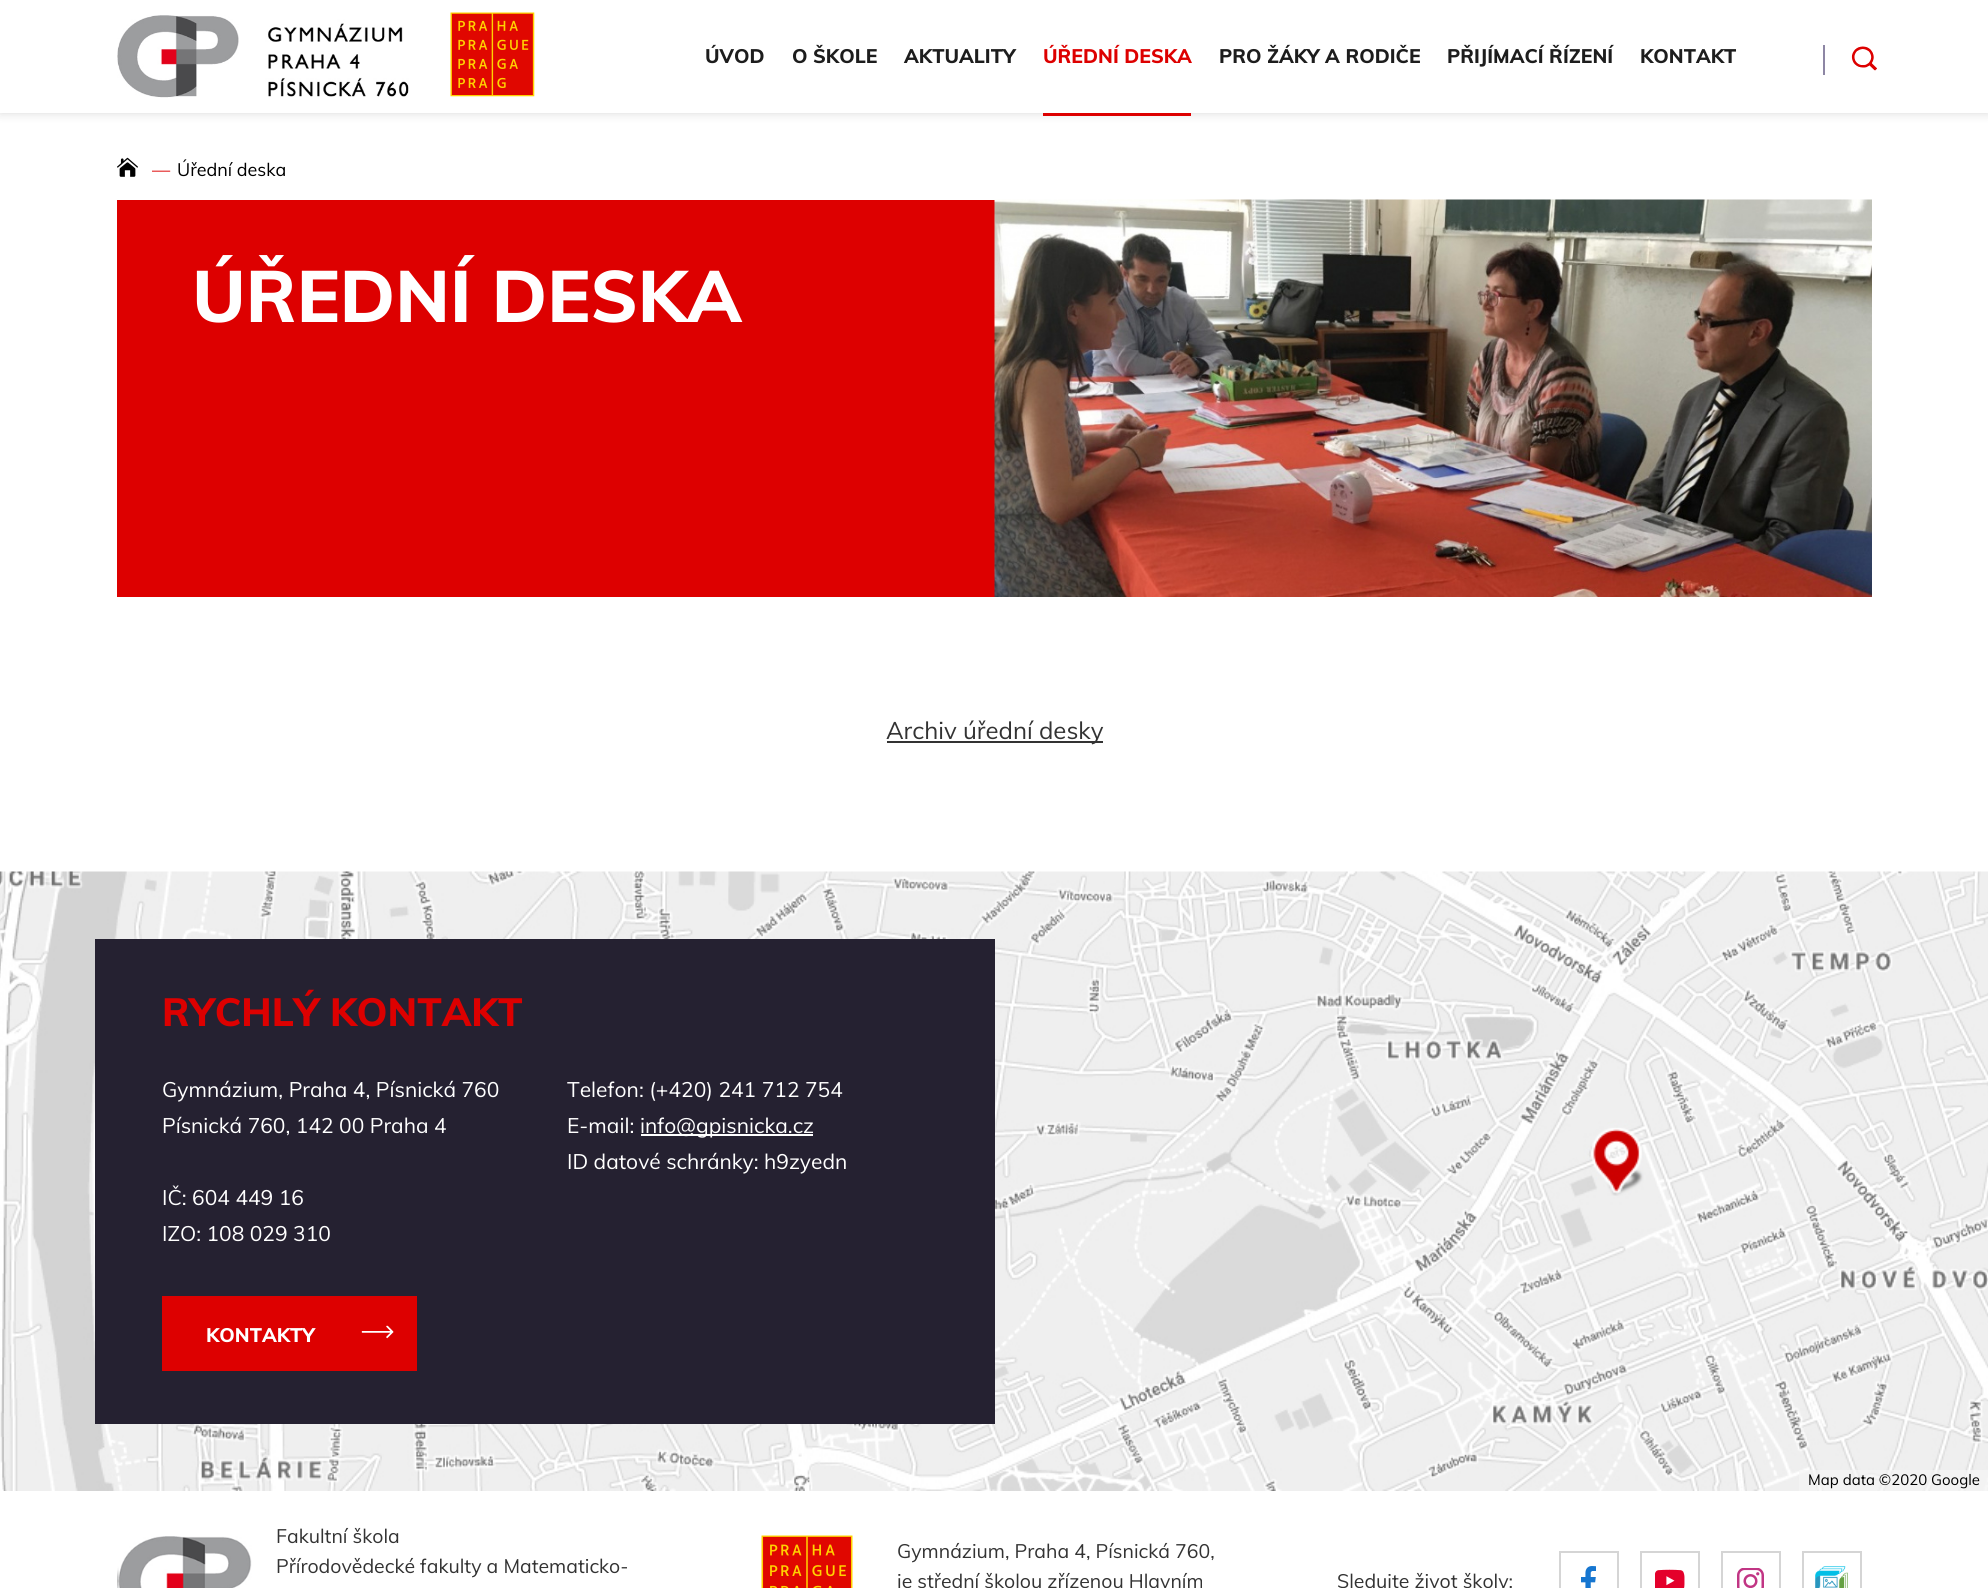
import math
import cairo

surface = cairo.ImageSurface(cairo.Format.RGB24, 1988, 1588)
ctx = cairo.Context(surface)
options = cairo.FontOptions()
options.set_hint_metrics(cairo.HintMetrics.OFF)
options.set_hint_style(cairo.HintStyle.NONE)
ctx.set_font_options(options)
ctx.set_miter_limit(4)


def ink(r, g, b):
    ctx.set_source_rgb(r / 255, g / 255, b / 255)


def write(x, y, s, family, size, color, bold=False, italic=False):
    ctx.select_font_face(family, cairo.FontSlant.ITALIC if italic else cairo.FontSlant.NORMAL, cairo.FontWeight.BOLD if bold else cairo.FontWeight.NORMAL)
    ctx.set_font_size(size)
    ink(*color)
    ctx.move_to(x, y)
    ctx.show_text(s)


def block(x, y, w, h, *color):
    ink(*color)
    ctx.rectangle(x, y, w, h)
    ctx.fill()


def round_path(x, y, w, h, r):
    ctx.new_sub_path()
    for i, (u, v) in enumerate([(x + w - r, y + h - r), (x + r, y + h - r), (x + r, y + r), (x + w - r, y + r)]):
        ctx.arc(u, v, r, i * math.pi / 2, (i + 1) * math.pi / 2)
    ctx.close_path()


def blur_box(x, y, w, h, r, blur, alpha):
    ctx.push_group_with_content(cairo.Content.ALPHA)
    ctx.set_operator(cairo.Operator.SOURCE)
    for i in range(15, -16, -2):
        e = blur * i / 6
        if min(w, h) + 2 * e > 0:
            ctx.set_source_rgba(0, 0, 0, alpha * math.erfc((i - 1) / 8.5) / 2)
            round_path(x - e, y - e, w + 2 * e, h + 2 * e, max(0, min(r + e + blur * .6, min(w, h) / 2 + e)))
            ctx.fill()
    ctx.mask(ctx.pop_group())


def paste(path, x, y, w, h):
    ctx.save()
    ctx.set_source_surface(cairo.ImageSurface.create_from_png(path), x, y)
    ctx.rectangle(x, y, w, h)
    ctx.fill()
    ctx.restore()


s1 = dict(family="Muli ExtraBold", size=19.5, color=(29, 29, 29))
s2 = dict(family="Muli ExtraBold", size=19.5, color=(221, 0, 0))
s3 = dict(family="Muli", size=18, color=(221, 0, 0))
s4 = dict(family="Muli", size=18, color=(0, 0, 0))
s5 = dict(family="Muli ExtraBold", size=72, color=(255, 255, 255))
s6 = dict(family="Muli", size=24, color=(51, 51, 51))
s7 = dict(family="Muli ExtraBold", size=39, color=(221, 0, 0))
s8 = dict(family="Muli", size=21, color=(255, 255, 255))
s9 = dict(family="Muli ExtraBold", size=19.5, color=(255, 255, 255))
s10 = dict(family="Muli", size=15, color=(0, 0, 0))
s11 = dict(family="Muli", size=19.5, color=(51, 51, 51))

ink(255, 255, 255)
ctx.paint()
ink(0, 0, 0)
blur_box(0, 0, 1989, 113, 0, 5.5, 0.15)
block(0, 0, 1988, 113, 255, 255, 255)
paste("pic1.png", 117, 15, 292, 83)
paste("pic2.png", 450, 12, 85, 85)
block(1823, 45, 2, 30, 141, 134, 164)
paste("pic3.png", 1851, 46, 26, 25)
write(705, 63, "ÚVOD", **s1)
write(792, 63, "O ŠKOLE", **s1)
write(904, 63, "AKTUALITY", **s1)
write(1043, 63, "ÚŘEDNÍ DESKA", **s2)
block(1043, 113, 148, 3, 221, 0, 0)
write(1219, 63, "PRO ŽÁKY A RODIČE", **s1)
write(1447, 63, "PŘIJÍMACÍ ŘÍZENÍ", **s1)
write(1640, 63, "KONTAKT", **s1)
paste("pic4.png", 117, 157, 21, 20)
write(152, 176, "—", **s3)
write(177, 176, "Úřední deska", **s4)
block(117, 200, 878, 397, 221, 0, 0)
write(192, 322, "ÚŘEDNÍ DESKA", **s5)
paste("pic5.png", 994, 199, 878, 398)
block(887, 741, 216, 2, 51, 51, 51)
write(886, 739, "Archiv úřední desky", **s6)
paste("pic7.png", 0, 871, 1988, 620)
block(95, 939, 900, 485, 37, 33, 49)
write(162, 1026, "RYCHLÝ KONTAKT", **s7)
write(162, 1097, "Gymnázium, Praha 4, Písnická 760", **s8)
write(162, 1133, "Písnická 760, 142 00 Praha 4", **s8)
write(162, 1205, "IČ: 604 449 16", **s8)
write(162, 1241, "IZO: 108 029 310", **s8)
write(567, 1097, "Telefon: (+420) 241 712 754", **s8)
write(567, 1133, "E-mail:", **s8)
block(641, 1134, 172, 2, 255, 255, 255)
write(640, 1133, "info@gpisnicka.cz", **s8)
write(567, 1169, "ID datové schránky: h9zyedn", **s8)
block(162, 1296, 255, 75, 221, 0, 0)
write(206, 1342, "KONTAKTY", **s9)
paste("pic6.png", 361, 1325, 33, 14)
ctx.set_source_rgba(0.961, 0.961, 0.961, 0.7)
ctx.rectangle(1799, 1470, 189, 21)
ctx.fill()
write(1808, 1485, "Map data ©2020 Google", **s10)
paste("pic8.png", 117, 1536, 135, 52)
write(276, 1543, "Fakultní škola", **s11)
write(276, 1573, "Přírodovědecké fakulty a Matematicko-", **s11)
paste("pic9.png", 761, 1535, 92, 53)
write(897, 1558, "Gymnázium, Praha 4, Písnická 760,", **s11)
write(897, 1588, "je střední školou zřízenou Hlavním", **s11)
write(1337, 1588, "Sledujte život školy:", **s11)
ctx.rectangle(1560, 1552, 58, 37)
ink(213, 213, 213)
ctx.stroke()
paste("pic10.png", 1581, 1566, 15, 22)
ctx.rectangle(1641, 1552, 58, 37)
ctx.stroke()
paste("pic11.png", 1655, 1569, 30, 19)
ctx.rectangle(1722, 1552, 58, 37)
ctx.stroke()
paste("pic12.png", 1737, 1568, 27, 20)
ctx.rectangle(1803, 1552, 58, 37)
ctx.stroke()
paste("pic13.png", 1815, 1566, 33, 22)
surface.write_to_png("screenshot.png")
